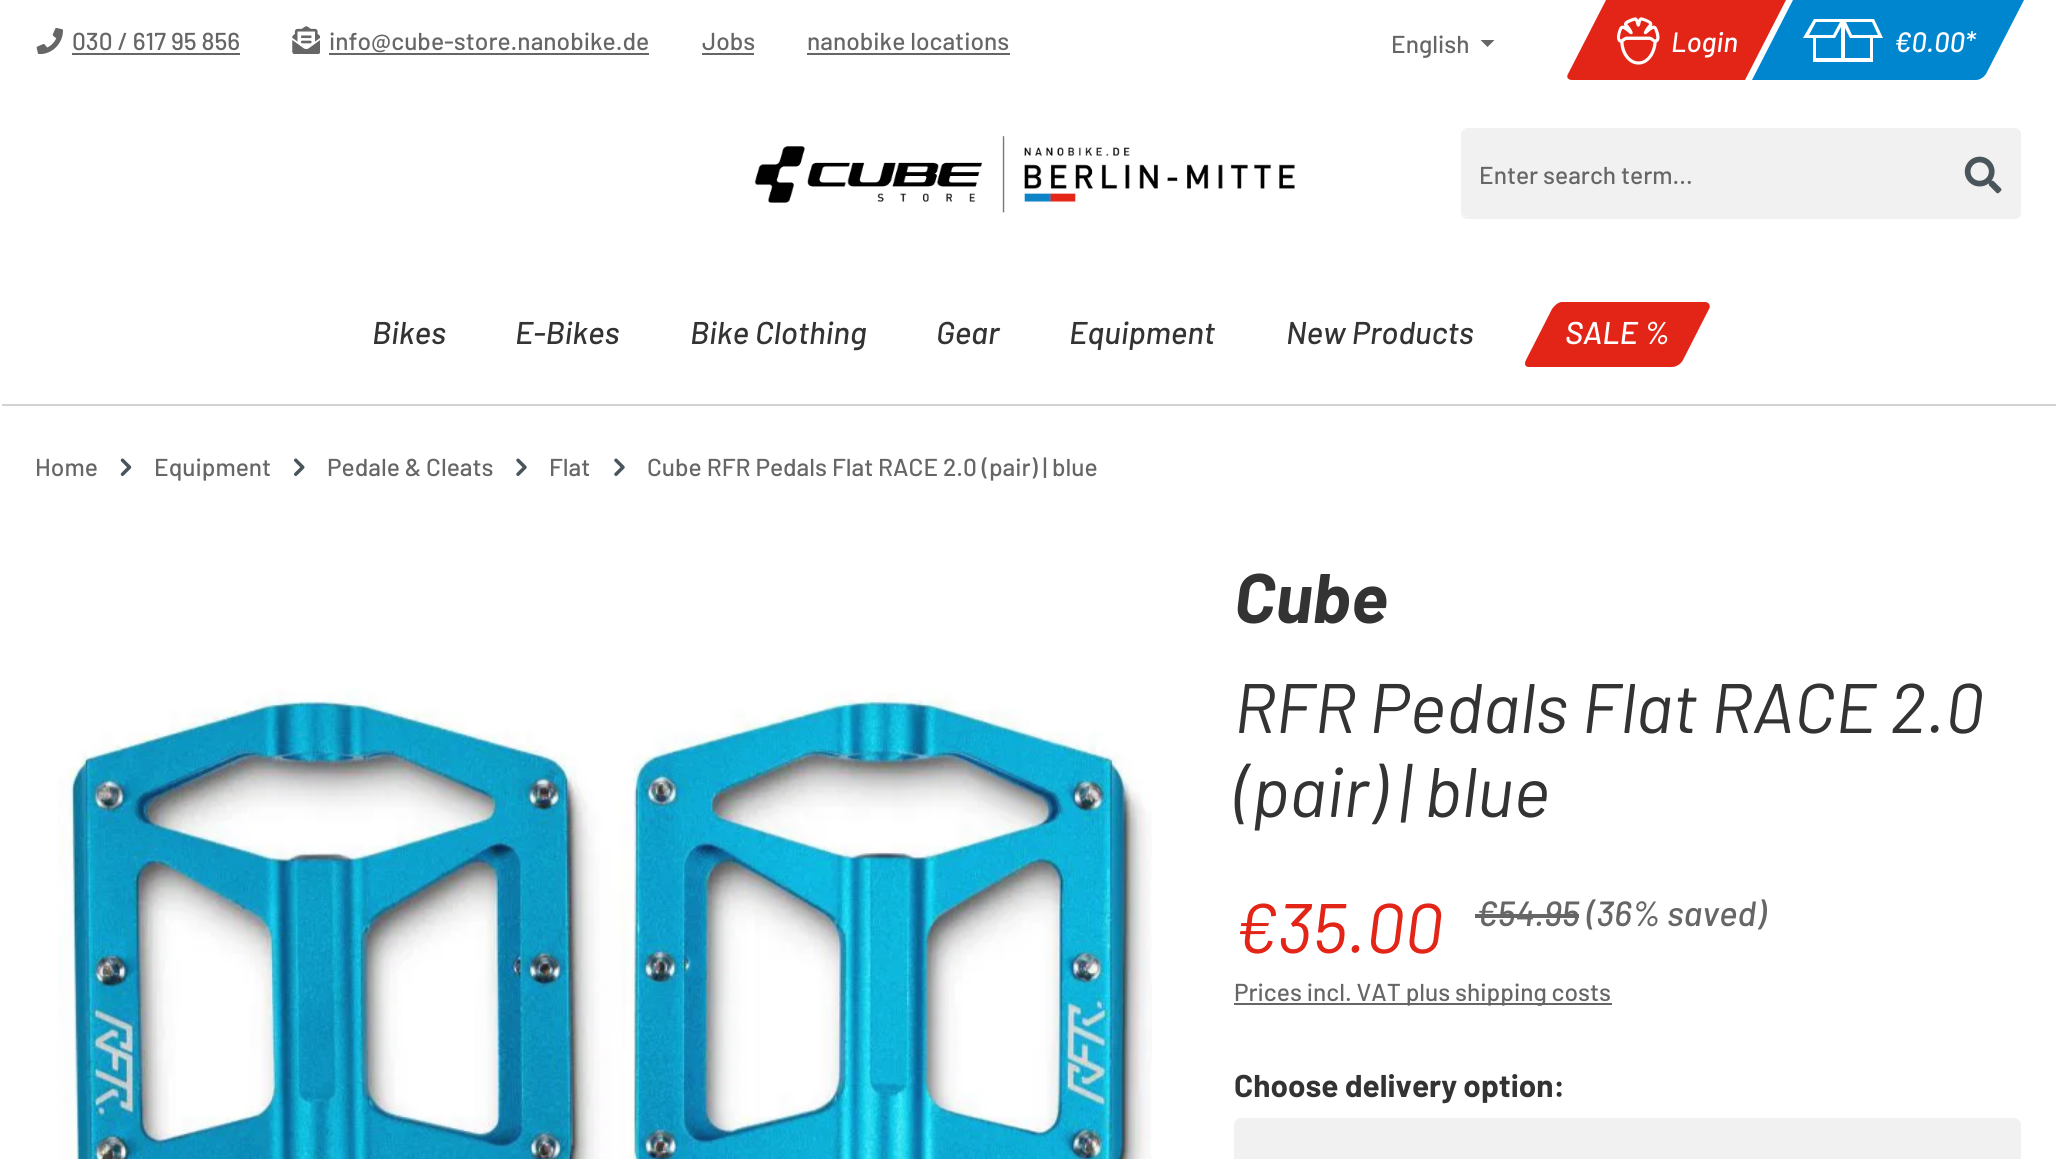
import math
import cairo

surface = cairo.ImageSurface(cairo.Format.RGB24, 2056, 1159)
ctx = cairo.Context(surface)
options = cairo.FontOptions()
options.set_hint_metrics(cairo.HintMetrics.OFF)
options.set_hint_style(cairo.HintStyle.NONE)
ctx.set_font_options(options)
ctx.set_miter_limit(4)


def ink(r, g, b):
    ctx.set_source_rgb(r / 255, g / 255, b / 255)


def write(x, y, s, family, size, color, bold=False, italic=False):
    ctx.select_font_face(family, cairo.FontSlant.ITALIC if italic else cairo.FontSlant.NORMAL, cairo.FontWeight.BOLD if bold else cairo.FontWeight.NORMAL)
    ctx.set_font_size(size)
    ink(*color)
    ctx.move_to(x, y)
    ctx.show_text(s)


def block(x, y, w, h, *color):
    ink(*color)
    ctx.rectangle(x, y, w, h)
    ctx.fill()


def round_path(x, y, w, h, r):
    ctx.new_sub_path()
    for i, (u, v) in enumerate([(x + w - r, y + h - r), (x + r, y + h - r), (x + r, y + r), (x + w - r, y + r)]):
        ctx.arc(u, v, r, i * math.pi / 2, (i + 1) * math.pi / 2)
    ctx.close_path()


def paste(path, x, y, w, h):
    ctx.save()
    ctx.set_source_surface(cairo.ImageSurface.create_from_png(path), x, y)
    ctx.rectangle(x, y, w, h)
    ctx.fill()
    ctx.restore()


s1 = dict(family="Barlow Medium", size=24.5, color=(102, 102, 102))
s2 = dict(family="Barlow Medium", size=28, color=(255, 255, 255), italic=True)
s3 = dict(family="Barlow Medium", size=31.5, color=(51, 51, 51), italic=True)
s4 = dict(family="Barlow Medium", size=31.5, color=(255, 255, 255), italic=True)
s5 = dict(family="Barlow", size=70, color=(51, 51, 51), bold=True, italic=True)
s6 = dict(family="Barlow", size=70, color=(51, 51, 51), italic=True)
s7 = dict(family="Barlow", size=70, color=(227, 37, 24), italic=True)
s8 = dict(family="Barlow Medium", size=35, color=(102, 102, 102), italic=True)
s9 = dict(family="Barlow", size=31.5, color=(51, 51, 51), bold=True)

ink(255, 255, 255)
ctx.paint()
paste("pic1.png", 36, 27, 27, 27)
write(72, 50, "030 / 617 95 856", **s1)
block(72, 53, 168, 2, 102, 102, 102)
paste("pic2.png", 292, 26, 28, 28)
write(329, 50, "info@cube-store.nanobike.de", **s1)
block(329, 53, 320, 2, 102, 102, 102)
write(702, 50, "Jobs", **s1)
block(702, 53, 52, 2, 102, 102, 102)
write(807, 50, "nanobike locations", **s1)
block(807, 53, 203, 2, 102, 102, 102)
write(1391, 53, "English", **s1)
ctx.new_path()
ctx.move_to(1480.5, 40)
ctx.line_to(1494.5, 40)
ctx.line_to(1487.5, 47)
ctx.close_path()
ctx.fill()
ink(227, 37, 24)
ctx.new_path()
ctx.move_to(1606, 0)
ctx.line_to(1786, 0)
ctx.line_to(1745, 80)
ctx.line_to(1572, 80)
ctx.curve_to(1568, 80, 1566, 77, 1568, 74)
ctx.close_path()
ctx.fill()
paste("pic3.png", 1617, 17, 43, 48)
write(1671, 52, "Login", **s2)
ink(0, 134, 207)
ctx.new_path()
ctx.move_to(1793, 0)
ctx.line_to(2024, 0)
ctx.line_to(1986, 74)
ctx.curve_to(1984, 77, 1980, 80, 1976, 80)
ctx.line_to(1752, 80)
ctx.close_path()
ctx.fill()
ink(255, 255, 255)
ctx.new_path()
ctx.move_to(1883, 38)
ctx.line_to(1874, 19)
ctx.line_to(1814, 19)
ctx.line_to(1803, 38)
ctx.line_to(1813, 38)
ctx.line_to(1813, 62)
ctx.line_to(1873, 62)
ctx.line_to(1873, 38)
ctx.close_path()
ctx.move_to(1872, 22)
ctx.line_to(1878, 35)
ctx.line_to(1852, 35)
ctx.line_to(1846, 22)
ctx.close_path()
ctx.move_to(1816, 22)
ctx.line_to(1840, 22)
ctx.line_to(1833, 35)
ctx.line_to(1809, 35)
ctx.close_path()
ctx.move_to(1816, 58)
ctx.line_to(1816, 38)
ctx.line_to(1835, 38)
ctx.line_to(1841, 27)
ctx.line_to(1841, 58)
ctx.close_path()
ctx.move_to(1870, 58)
ctx.line_to(1845, 58)
ctx.line_to(1845, 28)
ctx.line_to(1850, 38)
ctx.line_to(1870, 38)
ctx.close_path()
ctx.fill()
write(1894, 52, "€0.00*", **s2)
paste("pic4.png", 754, 136, 541, 77)
ink(241, 241, 241)
ctx.new_path()
ctx.move_to(1468, 130)
ctx.line_to(1948, 130)
ctx.line_to(1948, 217)
ctx.line_to(1468, 217)
ctx.curve_to(1465, 217, 1463, 215, 1463, 212)
ctx.line_to(1463, 135)
ctx.curve_to(1463, 132, 1465, 130, 1468, 130)
ctx.close_path()
ctx.fill()
ctx.set_fill_rule(cairo.FillRule.EVEN_ODD)
ctx.new_path()
ctx.move_to(1468, 128)
ctx.line_to(1948, 128)
ctx.line_to(1948, 219)
ctx.line_to(1468, 219)
ctx.curve_to(1464, 219, 1461, 216, 1461, 212)
ctx.line_to(1461, 135)
ctx.curve_to(1461, 131, 1464, 128, 1468, 128)
ctx.close_path()
ctx.move_to(1468, 130)
ctx.line_to(1948, 130)
ctx.line_to(1948, 217)
ctx.line_to(1468, 217)
ctx.curve_to(1465, 217, 1463, 215, 1463, 212)
ctx.line_to(1463, 135)
ctx.curve_to(1463, 132, 1465, 130, 1468, 130)
ctx.close_path()
ctx.fill()
write(1479, 184, "Enter search term...", **s1)
ink(241, 241, 241)
ctx.new_path()
ctx.move_to(1946, 128)
ctx.line_to(2014, 128)
ctx.curve_to(2018, 128, 2021, 131, 2021, 135)
ctx.line_to(2021, 212)
ctx.curve_to(2021, 216, 2018, 219, 2014, 219)
ctx.line_to(1946, 219)
ctx.close_path()
ctx.fill()
ctx.new_path()
ctx.move_to(1946, 128)
ctx.line_to(2014, 128)
ctx.curve_to(2018, 128, 2021, 131, 2021, 135)
ctx.line_to(2021, 212)
ctx.curve_to(2021, 216, 2018, 219, 2014, 219)
ctx.line_to(1946, 219)
ctx.close_path()
ctx.move_to(1946, 130)
ctx.line_to(2014, 130)
ctx.curve_to(2017, 130, 2020, 132, 2020, 135)
ctx.line_to(2020, 212)
ctx.curve_to(2020, 215, 2017, 217, 2014, 217)
ctx.line_to(1946, 217)
ctx.close_path()
ctx.fill()
paste("pic5.png", 1964, 156, 38, 38)
write(372, 344, "Bikes", **s3)
write(515, 344, "E-Bikes", **s3)
write(690, 344, "Bike Clothing", **s3)
write(936, 344, "Gear", **s3)
write(1069, 344, "Equipment", **s3)
write(1286, 344, "New Products", **s3)
ink(227, 37, 24)
ctx.set_fill_rule(cairo.FillRule.WINDING)
ctx.new_path()
ctx.move_to(1562, 302)
ctx.line_to(1705, 302)
ctx.curve_to(1709, 302, 1711, 306, 1709, 309)
ctx.line_to(1683, 360)
ctx.curve_to(1681, 364, 1676, 367, 1672, 367)
ctx.line_to(1529, 367)
ctx.curve_to(1525, 367, 1524, 364, 1526, 360)
ctx.line_to(1552, 309)
ctx.curve_to(1554, 306, 1558, 302, 1562, 302)
ctx.close_path()
ctx.fill()
write(1565, 344, "SALE %", **s4)
block(2, 404, 2054, 2, 210, 210, 210)
write(35, 476, "Home", **s1)
paste("pic6.png", 120, 458, 12, 18)
write(154, 476, "Equipment", **s1)
paste("pic7.png", 294, 458, 11, 18)
write(327, 476, "Pedale & Cleats", **s1)
paste("pic8.png", 516, 458, 11, 18)
write(549, 476, "Flat", **s1)
paste("pic8.png", 614, 458, 11, 18)
write(647, 476, "Cube RFR Pedals Flat RACE 2.0 (pair) | blue", **s1)
paste("pic9.png", 57, 688, 1095, 471)
write(1234, 623, "Cube", **s5)
write(1234, 733, "RFR Pedals Flat RACE 2.0", **s6)
write(1234, 817, "(pair) | blue", **s6)
write(1234, 953, "€35.00", **s7)
write(1476, 926, "€54.95 (36% saved)", **s8)
block(1475, 914, 104, 4, 102, 102, 102)
block(1234, 1003, 378, 2, 102, 102, 102)
write(1234, 1001, "Prices incl. VAT plus shipping costs", **s1)
write(1234, 1097, "Choose delivery option:", **s9)
ink(241, 241, 241)
round_path(1234, 1118, 787, 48, 7)
ctx.fill()
surface.write_to_png("screenshot.png")
